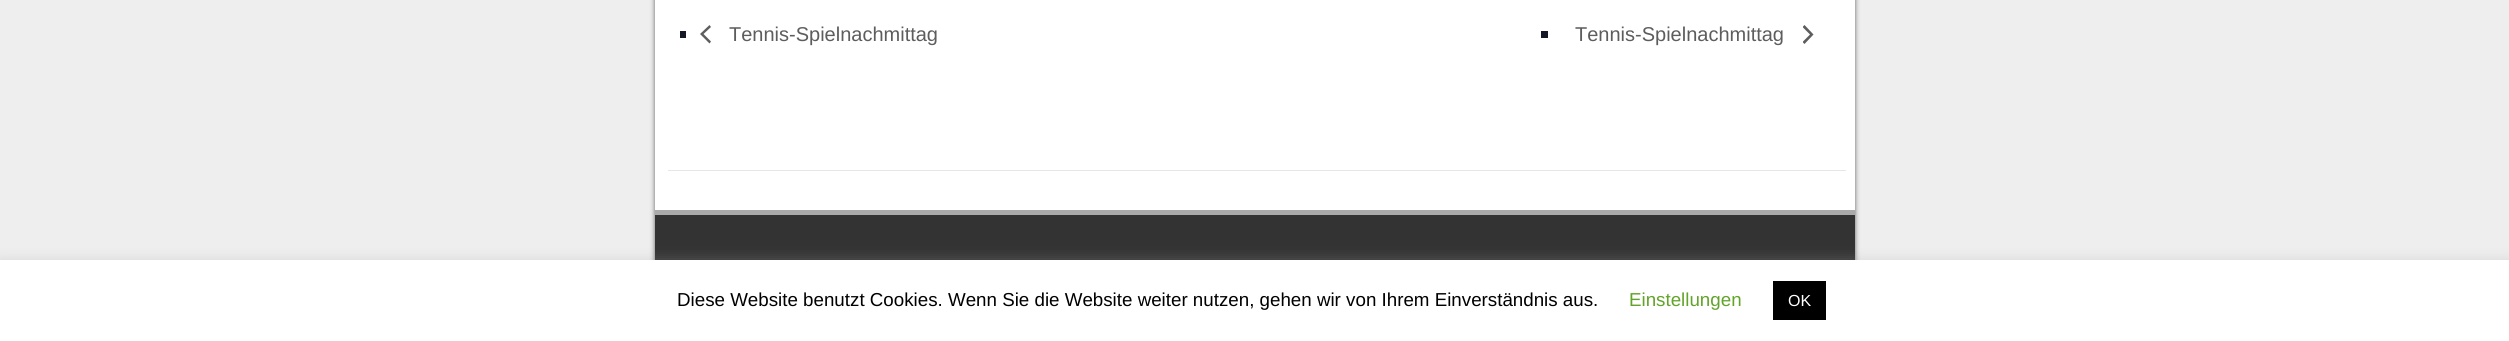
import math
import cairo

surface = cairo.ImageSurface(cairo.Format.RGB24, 2509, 341)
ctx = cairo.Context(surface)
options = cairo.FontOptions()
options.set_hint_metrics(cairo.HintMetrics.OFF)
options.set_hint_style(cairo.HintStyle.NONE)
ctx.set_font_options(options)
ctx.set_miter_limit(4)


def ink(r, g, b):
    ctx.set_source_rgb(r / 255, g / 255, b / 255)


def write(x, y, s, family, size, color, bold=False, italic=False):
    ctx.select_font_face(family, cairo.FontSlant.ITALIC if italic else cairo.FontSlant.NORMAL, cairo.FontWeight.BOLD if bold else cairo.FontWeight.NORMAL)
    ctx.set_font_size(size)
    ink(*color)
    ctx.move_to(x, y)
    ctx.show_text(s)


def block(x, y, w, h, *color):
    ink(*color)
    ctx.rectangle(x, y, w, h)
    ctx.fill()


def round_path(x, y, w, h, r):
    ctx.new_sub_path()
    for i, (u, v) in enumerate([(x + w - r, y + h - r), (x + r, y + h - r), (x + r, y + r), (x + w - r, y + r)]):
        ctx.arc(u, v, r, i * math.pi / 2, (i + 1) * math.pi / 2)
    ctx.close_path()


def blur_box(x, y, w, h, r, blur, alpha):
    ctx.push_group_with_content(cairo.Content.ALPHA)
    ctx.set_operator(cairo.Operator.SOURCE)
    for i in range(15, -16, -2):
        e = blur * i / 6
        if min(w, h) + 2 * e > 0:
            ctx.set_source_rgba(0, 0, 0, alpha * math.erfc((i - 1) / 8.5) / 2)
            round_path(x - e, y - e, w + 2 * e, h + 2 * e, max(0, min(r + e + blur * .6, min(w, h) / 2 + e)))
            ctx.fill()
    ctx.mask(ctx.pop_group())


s1 = dict(family="Liberation Sans", size=20, color=(93, 93, 93))
s2 = dict(family="Liberation Sans", size=18.75, color=(0, 0, 0))
s3 = dict(family="Liberation Sans", size=18.75, color=(98, 163, 41))
s4 = dict(family="Liberation Sans", size=16, color=(255, 255, 255))

ink(238, 238, 238)
ctx.paint()
ink(0, 0, 0)
blur_box(655, -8, 1200, 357, 0, 2.5, 0.6)
block(655, 0, 1200, 210, 255, 255, 255)
block(668, 170, 1178, 1, 230, 230, 230)
block(680, 31, 6, 7, 20, 24, 39)
ink(93, 93, 93)
ctx.new_path()
ctx.move_to(711, 41.5)
ctx.line_to(709.5, 43.5)
ctx.line_to(700, 34)
ctx.line_to(709.5, 25)
ctx.line_to(711, 27)
ctx.line_to(703.5, 34)
ctx.close_path()
ctx.fill()
write(729, 41, "Tennis-Spielnachmittag", **s1)
block(1541, 31, 7, 7, 20, 24, 39)
write(1575, 41, "Tennis-Spielnachmittag", **s1)
ctx.save()
ctx.rectangle(1803, 25, 11, 19)
ctx.clip()
ctx.new_path()
ctx.move_to(1802.5, 27)
ctx.line_to(1804.5, 25)
ctx.line_to(1813.5, 34.5)
ctx.line_to(1804.5, 44)
ctx.line_to(1802.5, 42)
ctx.line_to(1810, 34.5)
ctx.close_path()
ctx.fill()
ctx.restore()
block(655, 215, 1200, 45, 51, 51, 51)
block(655, 210, 1200, 5, 170, 170, 170)
ink(172, 171, 171)
blur_box(0, 259, 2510, 81, 0, 6, 0.3)
block(0, 260, 2509, 81, 255, 255, 255)
write(677, 306, "Diese Website benutzt Cookies. Wenn Sie die Website weiter nutzen, gehen wir von Ihrem Einverständnis aus.", **s2)
write(1629, 306, "Einstellungen", **s3)
block(1773, 281, 53, 39, 0, 0, 0)
write(1788, 306, "OK", **s4)
surface.write_to_png("screenshot.png")
